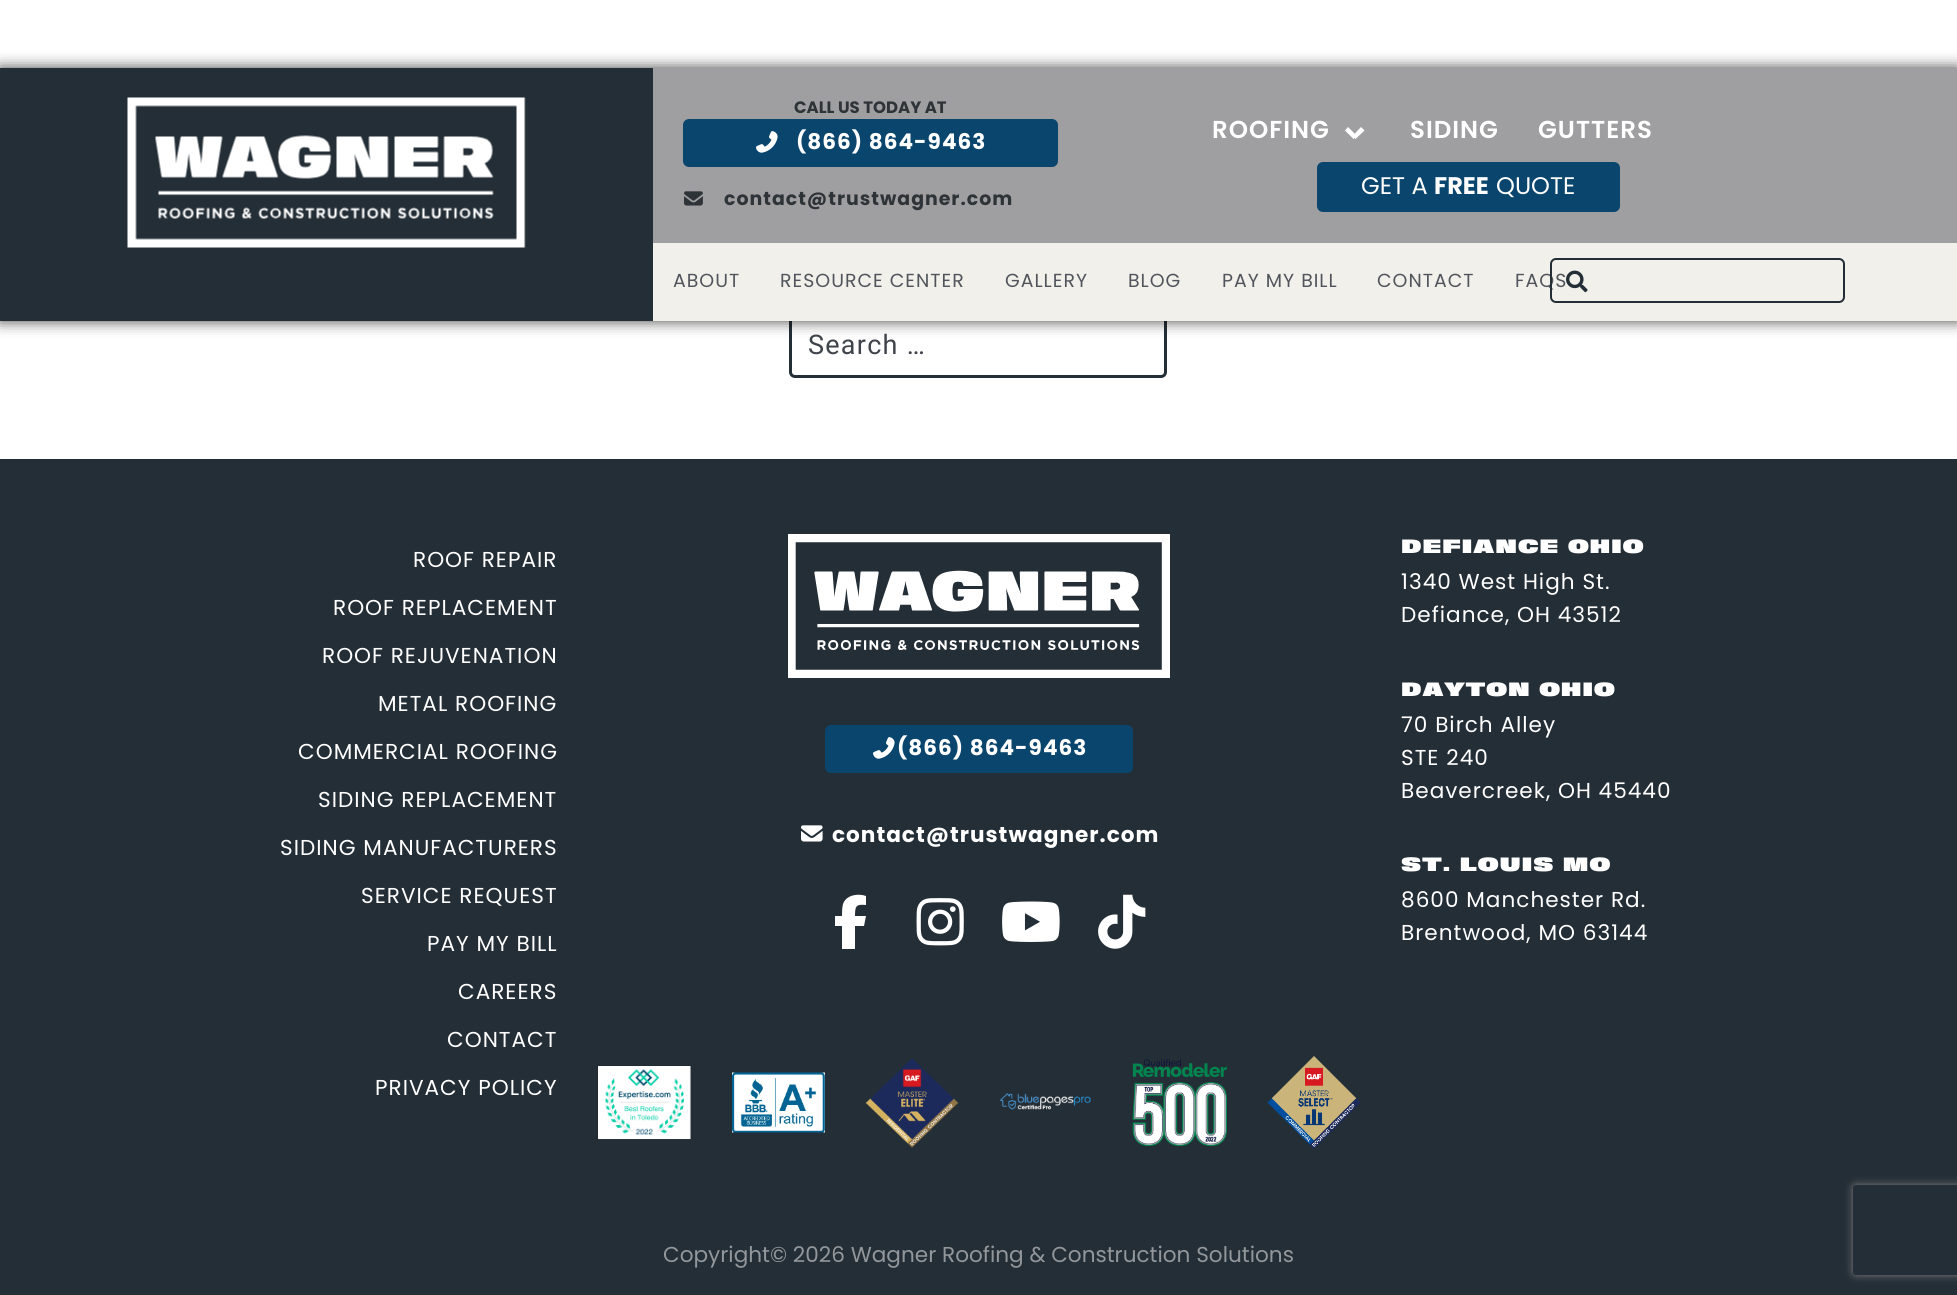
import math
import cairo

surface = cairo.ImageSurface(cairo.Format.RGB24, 1957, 1295)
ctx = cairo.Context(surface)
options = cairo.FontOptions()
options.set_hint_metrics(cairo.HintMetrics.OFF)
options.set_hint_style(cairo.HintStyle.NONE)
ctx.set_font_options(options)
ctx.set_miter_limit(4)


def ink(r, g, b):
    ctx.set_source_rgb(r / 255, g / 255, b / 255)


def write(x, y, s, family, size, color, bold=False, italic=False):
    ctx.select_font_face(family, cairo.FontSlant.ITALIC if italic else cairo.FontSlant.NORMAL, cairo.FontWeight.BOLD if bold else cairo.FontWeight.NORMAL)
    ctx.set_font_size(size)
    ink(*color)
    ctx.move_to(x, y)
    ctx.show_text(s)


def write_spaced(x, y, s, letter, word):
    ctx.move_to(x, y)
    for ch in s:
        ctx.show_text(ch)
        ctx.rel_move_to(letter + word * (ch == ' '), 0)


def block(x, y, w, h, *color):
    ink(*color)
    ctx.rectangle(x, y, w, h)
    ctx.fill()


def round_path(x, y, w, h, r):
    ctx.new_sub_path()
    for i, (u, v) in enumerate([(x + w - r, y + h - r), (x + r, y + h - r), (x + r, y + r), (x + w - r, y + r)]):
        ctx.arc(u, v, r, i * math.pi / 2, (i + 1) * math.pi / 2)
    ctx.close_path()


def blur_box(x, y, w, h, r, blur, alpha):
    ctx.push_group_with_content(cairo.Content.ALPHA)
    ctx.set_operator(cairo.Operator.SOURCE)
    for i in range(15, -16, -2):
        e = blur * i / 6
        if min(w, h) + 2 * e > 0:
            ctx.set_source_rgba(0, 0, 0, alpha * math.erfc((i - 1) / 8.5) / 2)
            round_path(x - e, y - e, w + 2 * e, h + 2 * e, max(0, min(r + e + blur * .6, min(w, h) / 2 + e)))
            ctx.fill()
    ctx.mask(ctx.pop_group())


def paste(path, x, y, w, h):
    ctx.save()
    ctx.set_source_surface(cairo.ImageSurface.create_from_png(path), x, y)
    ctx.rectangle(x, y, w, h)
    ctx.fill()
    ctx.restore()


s1 = dict(family="Poppins", size=16.5, color=(46, 51, 56), bold=True)
s2 = dict(family="Poppins", size=24, color=(255, 255, 255))
s3 = dict(family="Poppins", size=24, color=(255, 255, 255), bold=True)
s4 = dict(family="Poppins", size=21.6, color=(146, 151, 155))

ink(255, 255, 255)
ctx.paint()
round_path(790.5, 312.5, 375, 64, 4.5)
ink(36, 46, 54)
ctx.set_line_width(3)
ctx.stroke()
ink(0, 0, 0)
blur_box(0, 68, 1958, 253, 0, 7.5, 0.75)
block(653, 243, 1304, 78, 241, 240, 235)
block(0, 68, 653, 253, 36, 46, 54)
paste("pic1.png", 127, 97, 399, 151)
block(653, 68, 1304, 175, 159, 158, 160)
write(794, 113, "CALL US TODAY AT", **s1)
ink(10, 69, 109)
round_path(683, 119, 375, 48, 6)
ctx.fill()
paste("pic2.png", 756, 131, 22, 22)
ctx.set_font_size(21.6)
ink(255, 255, 255)
write_spaced(796, 149, "(866) 864-9463", 1, 0)
paste("pic3.png", 684, 191, 19, 15)
ctx.set_font_size(18.9)
ink(46, 51, 56)
write_spaced(724, 205, "contact@trustwagner.com", 1, 0)
ctx.select_font_face("Poppins SemiBold")
ctx.set_font_size(24.5)
ink(255, 255, 255)
write_spaced(1212, 138, "ROOFING", 1, 0)
ctx.new_path()
ctx.move_to(1352.5, 136)
ctx.line_to(1361, 127)
ctx.line_to(1364.5, 130.5)
ctx.line_to(1355.5, 139)
ctx.close_path()
ctx.fill()
ctx.new_path()
ctx.move_to(1345, 130.5)
ctx.line_to(1348, 127)
ctx.line_to(1357, 136)
ctx.line_to(1353.5, 139)
ctx.close_path()
ctx.fill()
write_spaced(1410, 138, "SIDING", 1, 0)
write_spaced(1538, 138, "GUTTERS", 1, 0)
ink(10, 69, 109)
round_path(1317, 162, 303, 50, 6)
ctx.fill()
write(1361, 194, "GET A", **s2)
write(1434, 194, "FREE", **s3)
write(1496, 194, "QUOTE", **s2)
ctx.set_font_size(18.9)
ink(81, 85, 91)
write_spaced(673, 287, "ABOUT", 1, 0)
write_spaced(780, 287, "RESOURCE CENTER", 1, 0)
write_spaced(1005, 287, "GALLERY", 1, 0)
write_spaced(1128, 287, "BLOG", 1, 0)
write_spaced(1222, 287, "PAY MY BILL", 1, 0)
write_spaced(1377, 287, "CONTACT", 1, 0)
write_spaced(1515, 287, "FAQS", 1, 0)
round_path(1551, 259, 293, 43, 5)
ink(36, 46, 54)
ctx.set_line_width(2)
ctx.stroke()
paste("pic4.png", 1566, 270, 22, 23)
ctx.select_font_face("Roboto")
ctx.set_font_size(27)
ink(62, 68, 74)
write_spaced(808, 354, "Search …", 1.25, 0)
block(0, 459, 1957, 836, 36, 46, 54)
ctx.select_font_face("Poppins")
ctx.set_font_size(21.6)
ink(255, 255, 255)
write_spaced(413, 567, "ROOF REPAIR", 1, 0)
write_spaced(333, 615, "ROOF REPLACEMENT", 1, 0)
write_spaced(322, 663, "ROOF REJUVENATION", 1, 0)
write_spaced(378, 711, "METAL ROOFING", 1, 0)
write_spaced(298, 759, "COMMERCIAL ROOFING", 1, 0)
write_spaced(318, 807, "SIDING REPLACEMENT", 1, 0)
write_spaced(280, 855, "SIDING MANUFACTURERS", 1, 0)
write_spaced(361, 903, "SERVICE REQUEST", 1, 0)
write_spaced(427, 951, "PAY MY BILL", 1, 0)
write_spaced(458, 999, "CAREERS", 1, 0)
write_spaced(447, 1047, "CONTACT", 1, 0)
write_spaced(375, 1095, "PRIVACY POLICY", 1, 0)
paste("pic5.png", 788, 534, 382, 144)
ink(10, 69, 109)
round_path(825, 725, 308, 48, 6)
ctx.fill()
paste("pic2.png", 873, 737, 22, 22)
ctx.select_font_face("Poppins", cairo.FontSlant.NORMAL, cairo.FontWeight.BOLD)
ink(255, 255, 255)
write_spaced(897, 755, "(866) 864-9463", 1, 0)
paste("pic6.png", 801, 825, 22, 17)
write_spaced(832, 842, "contact@trustwagner.com", 1, 0)
ctx.new_path()
ctx.move_to(842, 926)
ctx.line_to(842, 949)
ctx.line_to(855, 949)
ctx.line_to(855, 926)
ctx.line_to(864, 926)
ctx.line_to(866, 916)
ctx.line_to(855, 916)
ctx.curve_to(855, 906, 856, 904, 866, 905)
ctx.line_to(866, 896)
ctx.curve_to(858, 893, 846, 895, 843, 904)
ctx.curve_to(842, 908, 842, 912, 842, 916)
ctx.line_to(835, 916)
ctx.line_to(835, 926)
ctx.close_path()
ctx.fill()
paste("pic7.png", 916, 898, 48, 48)
paste("pic8.png", 1002, 901, 58, 41)
paste("pic9.png", 1098, 894, 48, 55)
paste("pic10.png", 597, 1065, 94, 75)
paste("pic11.png", 732, 1072, 93, 61)
paste("pic12.png", 865, 1058, 94, 90)
paste("pic13.png", 999, 1093, 93, 17)
paste("pic14.png", 1132, 1059, 95, 87)
paste("pic15.png", 1267, 1056, 94, 93)
ctx.select_font_face("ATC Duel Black")
ctx.set_font_size(19.25)
write_spaced(1401, 553, "DEFIANCE OHIO", 1, 0)
ctx.select_font_face("Poppins")
ctx.set_font_size(21.6)
write_spaced(1401, 589, "1340 West High St.", 1, 0)
write_spaced(1401, 622, "Defiance, OH 43512", 1, 0)
ctx.select_font_face("ATC Duel Black")
ctx.set_font_size(19.25)
write_spaced(1401, 696, "DAYTON OHIO", 1, 0)
ctx.select_font_face("Poppins")
ctx.set_font_size(21.6)
write_spaced(1401, 732, "70 Birch Alley", 1, 0)
write_spaced(1401, 765, "STE 240", 1, 0)
write_spaced(1401, 798, "Beavercreek, OH 45440", 1, 0)
ctx.select_font_face("ATC Duel Black")
ctx.set_font_size(19.25)
write_spaced(1401, 871, "ST. LOUIS MO", 1, 0)
ctx.select_font_face("Poppins")
ctx.set_font_size(21.6)
write_spaced(1401, 907, "8600 Manchester Rd.", 1, 0)
write_spaced(1401, 940, "Brentwood, MO 63144", 1, 0)
write(663, 1262, "Copyright© 2026 Wagner Roofing & Construction Solutions", **s4)
ctx.save()
ctx.set_fill_rule(cairo.FillRule.EVEN_ODD)
ctx.new_path()
ctx.move_to(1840, 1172)
ctx.line_to(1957, 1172)
ctx.line_to(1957, 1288)
ctx.line_to(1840, 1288)
ctx.close_path()
ctx.move_to(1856, 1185)
ctx.line_to(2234, 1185)
ctx.curve_to(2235.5, 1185, 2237, 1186.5, 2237, 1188)
ctx.line_to(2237, 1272)
ctx.curve_to(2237, 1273.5, 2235.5, 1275, 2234, 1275)
ctx.line_to(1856, 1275)
ctx.curve_to(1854.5, 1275, 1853, 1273.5, 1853, 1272)
ctx.line_to(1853, 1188)
ctx.curve_to(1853, 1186.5, 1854.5, 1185, 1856, 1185)
ctx.close_path()
ctx.clip()
ink(128, 128, 128)
blur_box(1853, 1185, 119, 90, 3, 4, 1)
ctx.restore()
surface.write_to_png("screenshot.png")
